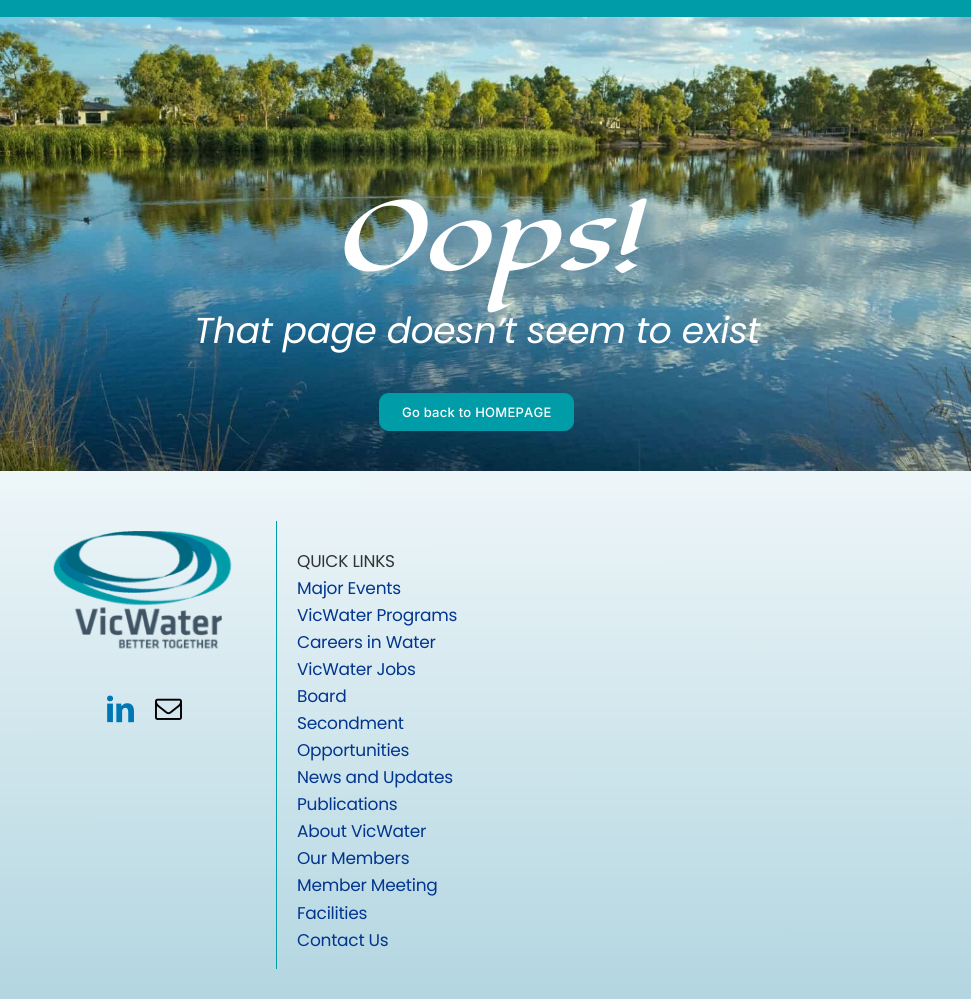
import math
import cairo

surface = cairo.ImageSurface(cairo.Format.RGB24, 971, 999)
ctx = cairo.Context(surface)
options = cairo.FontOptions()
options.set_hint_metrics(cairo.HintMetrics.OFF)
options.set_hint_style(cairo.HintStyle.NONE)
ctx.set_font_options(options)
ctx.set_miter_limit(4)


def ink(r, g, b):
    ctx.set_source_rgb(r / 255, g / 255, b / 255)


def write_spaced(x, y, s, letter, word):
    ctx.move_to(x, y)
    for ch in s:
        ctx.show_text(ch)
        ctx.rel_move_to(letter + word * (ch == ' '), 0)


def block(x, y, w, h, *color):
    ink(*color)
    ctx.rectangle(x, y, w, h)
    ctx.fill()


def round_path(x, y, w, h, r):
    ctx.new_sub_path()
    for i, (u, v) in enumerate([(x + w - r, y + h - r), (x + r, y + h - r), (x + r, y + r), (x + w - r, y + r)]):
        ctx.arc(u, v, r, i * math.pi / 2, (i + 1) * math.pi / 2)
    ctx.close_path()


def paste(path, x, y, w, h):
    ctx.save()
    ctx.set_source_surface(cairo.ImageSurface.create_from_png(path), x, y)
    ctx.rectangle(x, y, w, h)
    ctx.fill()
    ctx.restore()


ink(255, 255, 255)
ctx.paint()
block(0, 0, 971, 17, 0, 156, 167)
paste("pic1.png", 0, 17, 971, 454)
ctx.select_font_face("Eagle Lake", cairo.FontSlant.ITALIC)
ctx.set_font_size(96)
ink(255, 255, 255)
write_spaced(333, 269, "Oops!", -1, 0)
ctx.select_font_face("Poppins", cairo.FontSlant.ITALIC)
ctx.set_font_size(36)
write_spaced(194, 343, "That page doesn’t seem to exist", -0.4, 0)
ink(0, 156, 167)
round_path(379, 393, 195, 38, 10)
ctx.fill()
ctx.select_font_face("Inter Medium")
ctx.set_font_size(13)
ink(255, 255, 255)
write_spaced(402, 417, "Go back to HOMEPAGE", 0.25, 0)
gradient = cairo.LinearGradient(485, 471, 486, 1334)
gradient.add_color_stop_rgba(0, 0.933, 0.965, 0.976, 1)
gradient.add_color_stop_rgba(1, 0.553, 0.757, 0.82, 1)
ctx.set_source(gradient)
ctx.rectangle(0, 471, 971, 528)
ctx.fill()
paste("pic2.png", 53, 531, 179, 118)
paste("pic3.png", 107, 695, 27, 28)
paste("pic4.png", 155, 698, 27, 22)
block(276, 521, 1, 448, 0, 156, 167)
ctx.select_font_face("Poppins")
ctx.set_font_size(17)
ink(51, 51, 51)
write_spaced(297, 567, "QUICK LINKS", -0.25, 0)
ink(1, 53, 142)
write_spaced(297, 594, "Major Events", -0.25, 0)
write_spaced(297, 621, "VicWater Programs", -0.25, 0)
write_spaced(297, 648, "Careers in Water", -0.25, 0)
write_spaced(297, 675, "VicWater Jobs", -0.25, 0)
write_spaced(297, 702, "Board", -0.25, 0)
write_spaced(297, 729, "Secondment", -0.25, 0)
write_spaced(297, 756, "Opportunities", -0.25, 0)
write_spaced(297, 783, "News and Updates", -0.25, 0)
write_spaced(297, 810, "Publications", -0.25, 0)
write_spaced(297, 837, "About VicWater", -0.25, 0)
write_spaced(297, 864, "Our Members", -0.25, 0)
write_spaced(297, 891, "Member Meeting", -0.25, 0)
write_spaced(297, 919, "Facilities", -0.25, 0)
write_spaced(297, 946, "Contact Us", -0.25, 0)
surface.write_to_png("screenshot.png")
